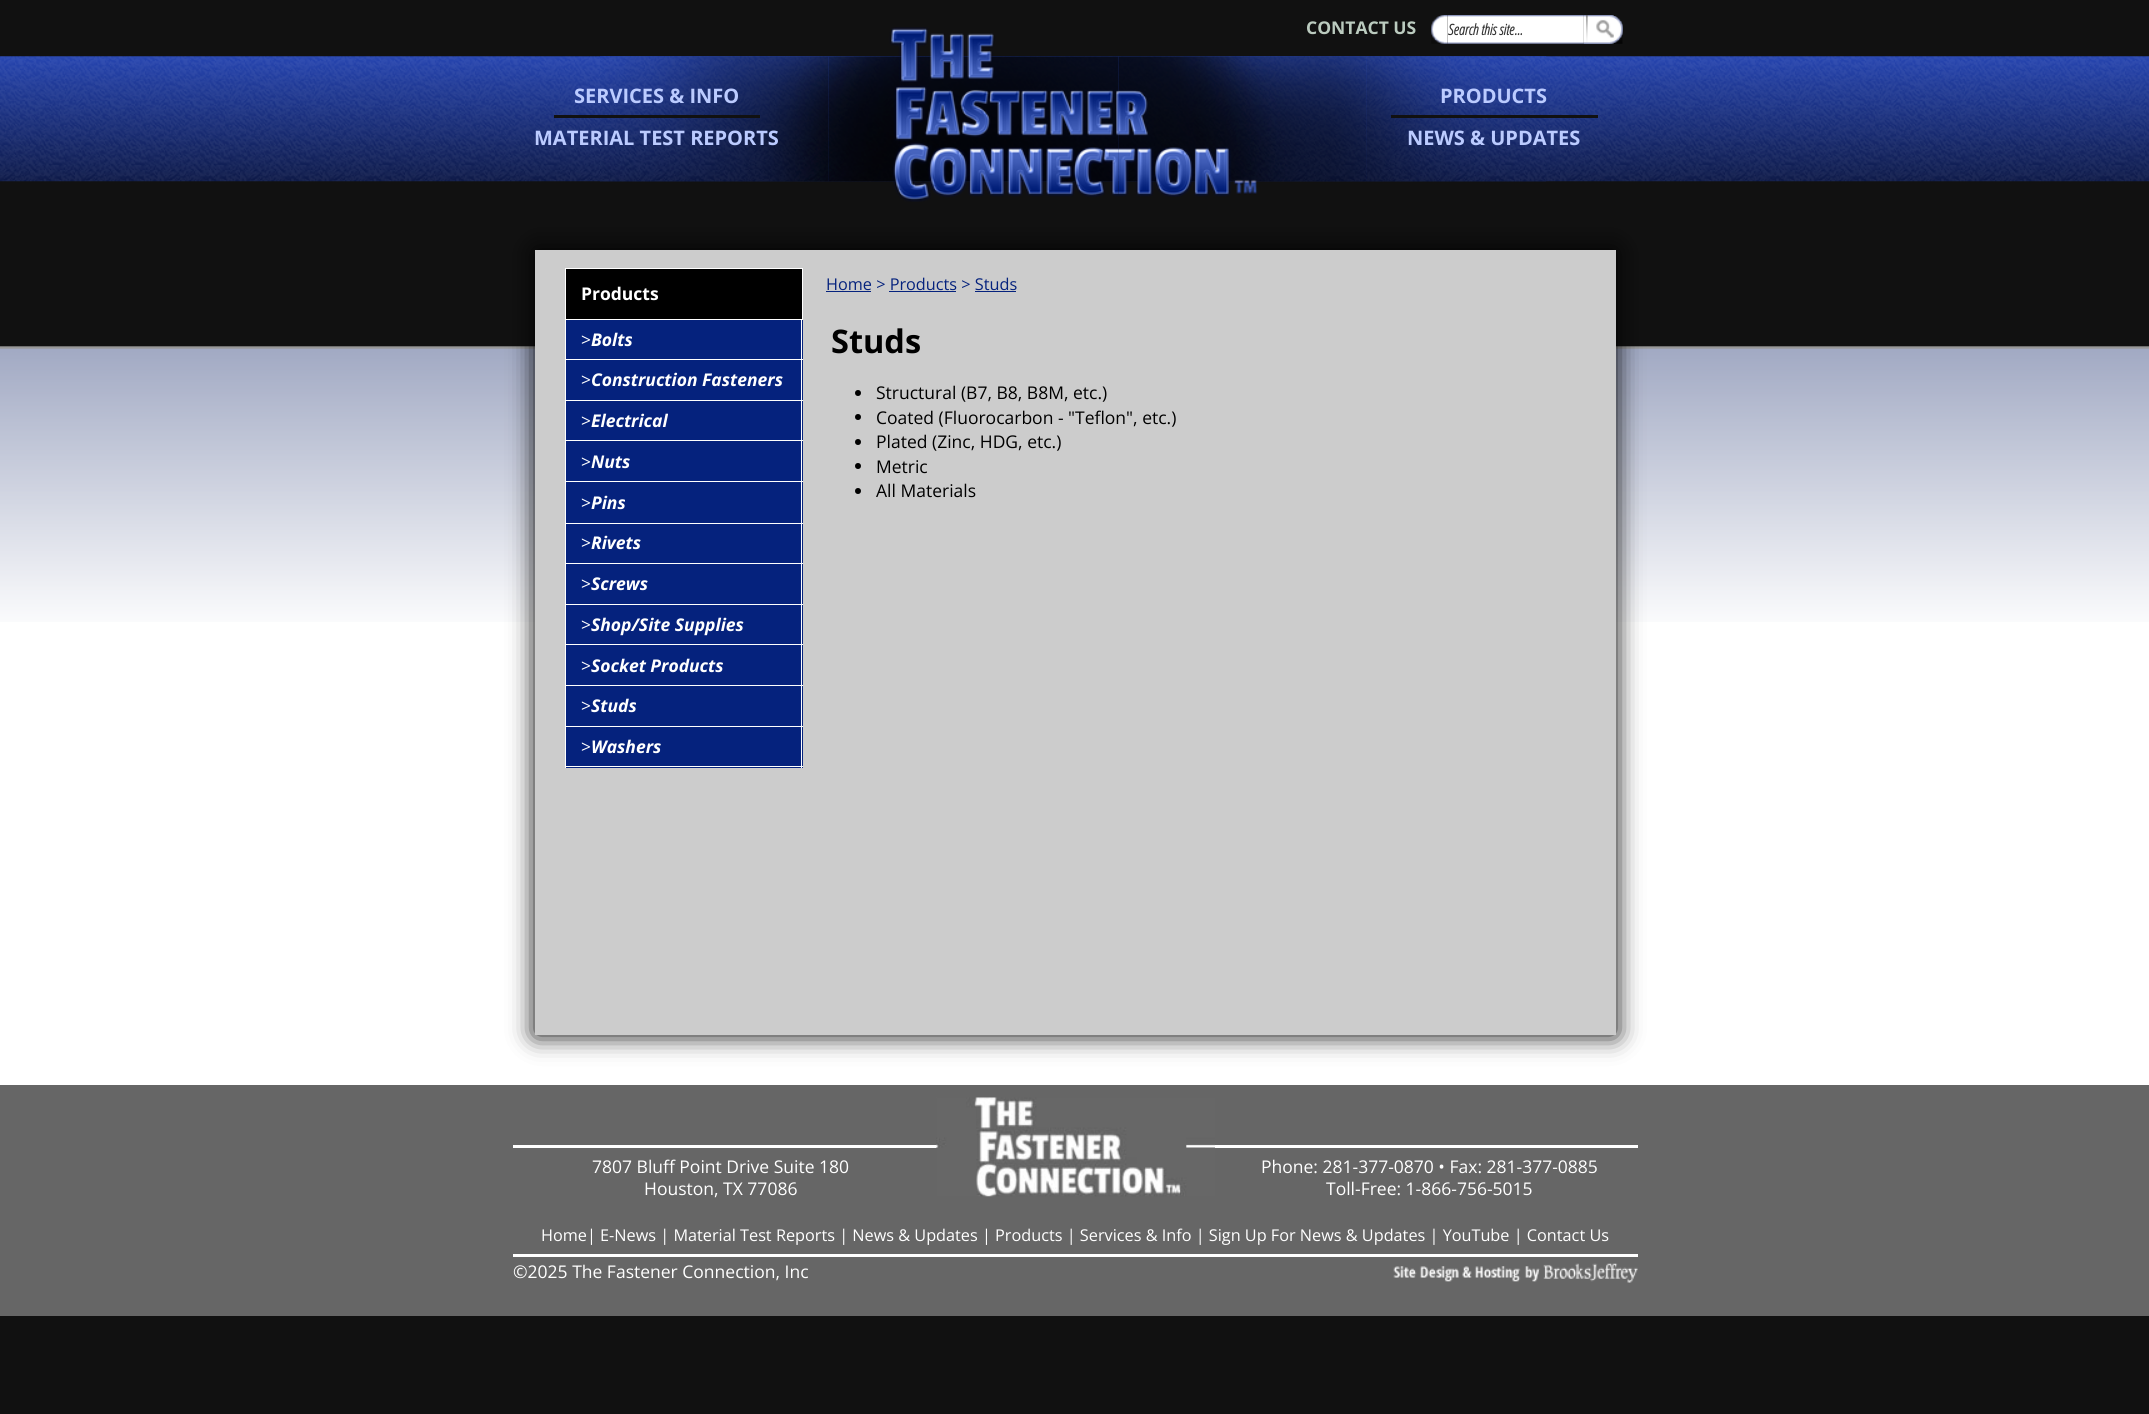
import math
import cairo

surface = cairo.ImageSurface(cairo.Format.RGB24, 2149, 1414)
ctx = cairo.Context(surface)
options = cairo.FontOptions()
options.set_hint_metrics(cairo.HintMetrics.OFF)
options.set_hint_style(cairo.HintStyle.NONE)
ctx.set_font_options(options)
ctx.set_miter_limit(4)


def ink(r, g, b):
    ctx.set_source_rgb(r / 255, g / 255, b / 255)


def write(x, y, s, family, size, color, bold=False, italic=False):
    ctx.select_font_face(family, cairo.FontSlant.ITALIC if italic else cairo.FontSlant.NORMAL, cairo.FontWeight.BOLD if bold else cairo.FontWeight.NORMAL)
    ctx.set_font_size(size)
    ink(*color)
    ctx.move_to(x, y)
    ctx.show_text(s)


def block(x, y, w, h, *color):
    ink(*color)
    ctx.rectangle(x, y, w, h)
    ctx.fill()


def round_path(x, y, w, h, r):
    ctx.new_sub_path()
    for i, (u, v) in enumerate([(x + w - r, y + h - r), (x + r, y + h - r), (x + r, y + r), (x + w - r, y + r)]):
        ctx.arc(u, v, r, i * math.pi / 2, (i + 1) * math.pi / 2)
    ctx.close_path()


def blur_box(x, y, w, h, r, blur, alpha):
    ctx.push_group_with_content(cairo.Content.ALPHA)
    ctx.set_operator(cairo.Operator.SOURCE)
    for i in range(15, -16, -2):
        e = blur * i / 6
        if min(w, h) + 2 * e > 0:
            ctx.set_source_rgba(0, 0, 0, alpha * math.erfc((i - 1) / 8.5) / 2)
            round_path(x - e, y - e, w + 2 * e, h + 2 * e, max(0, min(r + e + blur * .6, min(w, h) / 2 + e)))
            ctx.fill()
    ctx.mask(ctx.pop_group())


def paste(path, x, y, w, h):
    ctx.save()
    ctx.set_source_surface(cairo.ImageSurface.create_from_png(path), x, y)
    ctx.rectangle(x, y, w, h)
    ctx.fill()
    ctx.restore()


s1 = dict(family="Open Sans", size=17.5, color=(187, 203, 191), bold=True)
s2 = dict(family="Open Sans Condensed", size=15, color=(51, 51, 51), bold=True, italic=True)
s3 = dict(family="Open Sans", size=20, color=(187, 203, 255), bold=True)
s4 = dict(family="Open Sans", size=17.5, color=(255, 255, 255), bold=True)
s5 = dict(family="Open Sans", size=17.5, color=(255, 255, 255))
s6 = dict(family="Open Sans", size=17.5, color=(255, 255, 255), bold=True, italic=True)
s7 = dict(family="Open Sans", size=16.25, color=(5, 34, 125))
s8 = dict(family="Open Sans", size=32.5, color=(0, 0, 0), bold=True)
s9 = dict(family="Open Sans", size=17.5, color=(0, 0, 0))
s10 = dict(family="Open Sans", size=16.25, color=(255, 255, 255))

ink(17, 17, 17)
ctx.paint()
write(1306, 34, "CONTACT US", **s1)
paste("pic1.png", 1431, 15, 17, 29)
paste("pic2.png", 1447, 15, 137, 29)
write(1448, 35, "Search this site...", **s2)
paste("pic3.png", 1583, 15, 40, 29)
paste("pic4.png", 1583, 15, 40, 29)
paste("pic5.png", 0, 56, 2149, 126)
paste("pic6.png", 600, 56, 229, 126)
paste("pic7.png", 828, 27, 291, 175)
paste("pic8.png", 1118, 56, 249, 141)
paste("pic9.png", 1366, 56, 181, 126)
write(574, 103, "SERVICES & INFO", **s3)
block(554, 115, 206, 3, 17, 17, 17)
write(534, 145, "MATERIAL TEST REPORTS", **s3)
write(1440, 103, "PRODUCTS", **s3)
block(1391, 115, 207, 3, 17, 17, 17)
write(1407, 145, "NEWS & UPDATES", **s3)
block(0, 622, 2149, 463, 255, 255, 255)
paste("pic10.png", 0, 250, 2149, 372)
ink(0, 0, 0)
blur_box(535, 250, 1081, 785, 0, 12.5, 1)
block(535, 250, 1081, 785, 204, 204, 204)
ink(0, 0, 0)
ctx.rectangle(565.5, 268.5, 237, 51)
ctx.fill_preserve()
ink(255, 255, 255)
ctx.set_line_width(1)
ctx.stroke()
write(581, 300, "Products", **s4)
block(566, 320, 237, 39, 5, 34, 125)
block(801, 320, 1, 40, 255, 255, 255)
block(565, 359, 238, 1, 255, 255, 255)
block(565, 320, 1, 40, 255, 255, 255)
write(581, 346, ">", **s5)
write(591, 346, "Bolts", **s6)
block(566, 360, 237, 40, 5, 34, 125)
block(801, 360, 1, 41, 255, 255, 255)
block(565, 400, 238, 1, 255, 255, 255)
block(565, 360, 1, 41, 255, 255, 255)
write(581, 386, ">", **s5)
write(591, 386, "Construction Fasteners", **s6)
block(566, 401, 237, 39, 5, 34, 125)
block(801, 401, 1, 40, 255, 255, 255)
block(565, 440, 238, 1, 255, 255, 255)
block(565, 401, 1, 40, 255, 255, 255)
write(581, 427, ">", **s5)
write(591, 427, "Electrical", **s6)
block(566, 441, 237, 82, 5, 34, 125)
block(801, 441, 1, 83, 255, 255, 255)
block(565, 481, 238, 1, 255, 255, 255)
block(565, 441, 1, 42, 255, 255, 255)
write(581, 468, ">", **s5)
write(591, 468, "Nuts", **s6)
block(565, 523, 238, 1, 255, 255, 255)
block(565, 483, 1, 41, 255, 255, 255)
write(581, 509, ">", **s5)
write(591, 509, "Pins", **s6)
block(566, 524, 237, 39, 5, 34, 125)
block(801, 524, 1, 40, 255, 255, 255)
block(565, 563, 238, 1, 255, 255, 255)
block(565, 524, 1, 40, 255, 255, 255)
write(581, 549, ">", **s5)
write(591, 549, "Rivets", **s6)
block(566, 564, 237, 40, 5, 34, 125)
block(801, 564, 1, 41, 255, 255, 255)
block(565, 604, 238, 1, 255, 255, 255)
block(565, 564, 1, 41, 255, 255, 255)
write(581, 590, ">", **s5)
write(591, 590, "Screws", **s6)
block(566, 605, 237, 39, 5, 34, 125)
block(801, 605, 1, 40, 255, 255, 255)
block(565, 644, 238, 1, 255, 255, 255)
block(565, 605, 1, 40, 255, 255, 255)
write(581, 631, ">", **s5)
write(591, 631, "Shop/Site Supplies", **s6)
block(566, 645, 237, 40, 5, 34, 125)
block(801, 645, 1, 41, 255, 255, 255)
block(565, 685, 238, 1, 255, 255, 255)
block(565, 645, 1, 41, 255, 255, 255)
write(581, 672, ">", **s5)
write(591, 672, "Socket Products", **s6)
block(566, 686, 237, 82, 5, 34, 125)
block(801, 686, 1, 82, 255, 255, 255)
block(565, 726, 238, 1, 255, 255, 255)
block(565, 686, 1, 42, 255, 255, 255)
write(581, 712, ">", **s5)
write(591, 712, "Studs", **s6)
block(565, 766, 238, 1, 255, 255, 255)
block(565, 728, 1, 40, 255, 255, 255)
write(581, 753, ">", **s5)
write(591, 753, "Washers", **s6)
write(826, 290, "Home > Products > Studs", **s7)
block(826, 291, 45, 1, 5, 34, 125)
block(889, 291, 67, 1, 5, 34, 125)
block(975, 291, 41, 1, 5, 34, 125)
write(831, 353, "Studs", **s8)
ctx.new_path()
ctx.arc(858, 393, 3, 0, 2 * math.pi)
ctx.fill()
write(876, 399, "Structural (B7, B8, B8M, etc.)", **s9)
ctx.new_path()
ctx.arc(858, 417, 3, 0, 2 * math.pi)
ctx.fill()
write(876, 424, "Coated (Fluorocarbon - \"Teflon\", etc.)", **s9)
ctx.new_path()
ctx.arc(858, 442, 3, 0, 2 * math.pi)
ctx.fill()
write(876, 448, "Plated (Zinc, HDG, etc.)", **s9)
ctx.new_path()
ctx.arc(858, 466, 3, 0, 2 * math.pi)
ctx.fill()
write(876, 473, "Metric", **s9)
ctx.new_path()
ctx.arc(858, 491, 3, 0, 2 * math.pi)
ctx.fill()
write(876, 497, "All Materials", **s9)
block(0, 1085, 2149, 231, 102, 102, 102)
block(513, 1145, 1125, 3, 255, 255, 255)
paste("pic11.png", 936, 1097, 279, 100)
write(592, 1173, "7807 Bluff Point Drive Suite 180", **s5)
write(644, 1195, "Houston, TX 77086", **s5)
write(1261, 1173, "Phone: 281-377-0870 • Fax: 281-377-0885", **s5)
write(1326, 1195, "Toll-Free: 1-866-756-5015", **s5)
write(541, 1241, "Home| E-News | Material Test Reports | News & Updates | Products | Services & Info | Sign Up For News & Updates | YouTube | Contact Us", **s10)
block(513, 1254, 1125, 3, 255, 255, 255)
write(513, 1278, "©2025 The Fastener Connection, Inc", **s5)
paste("pic12.png", 1393, 1263, 245, 20)
surface.write_to_png("screenshot.png")
